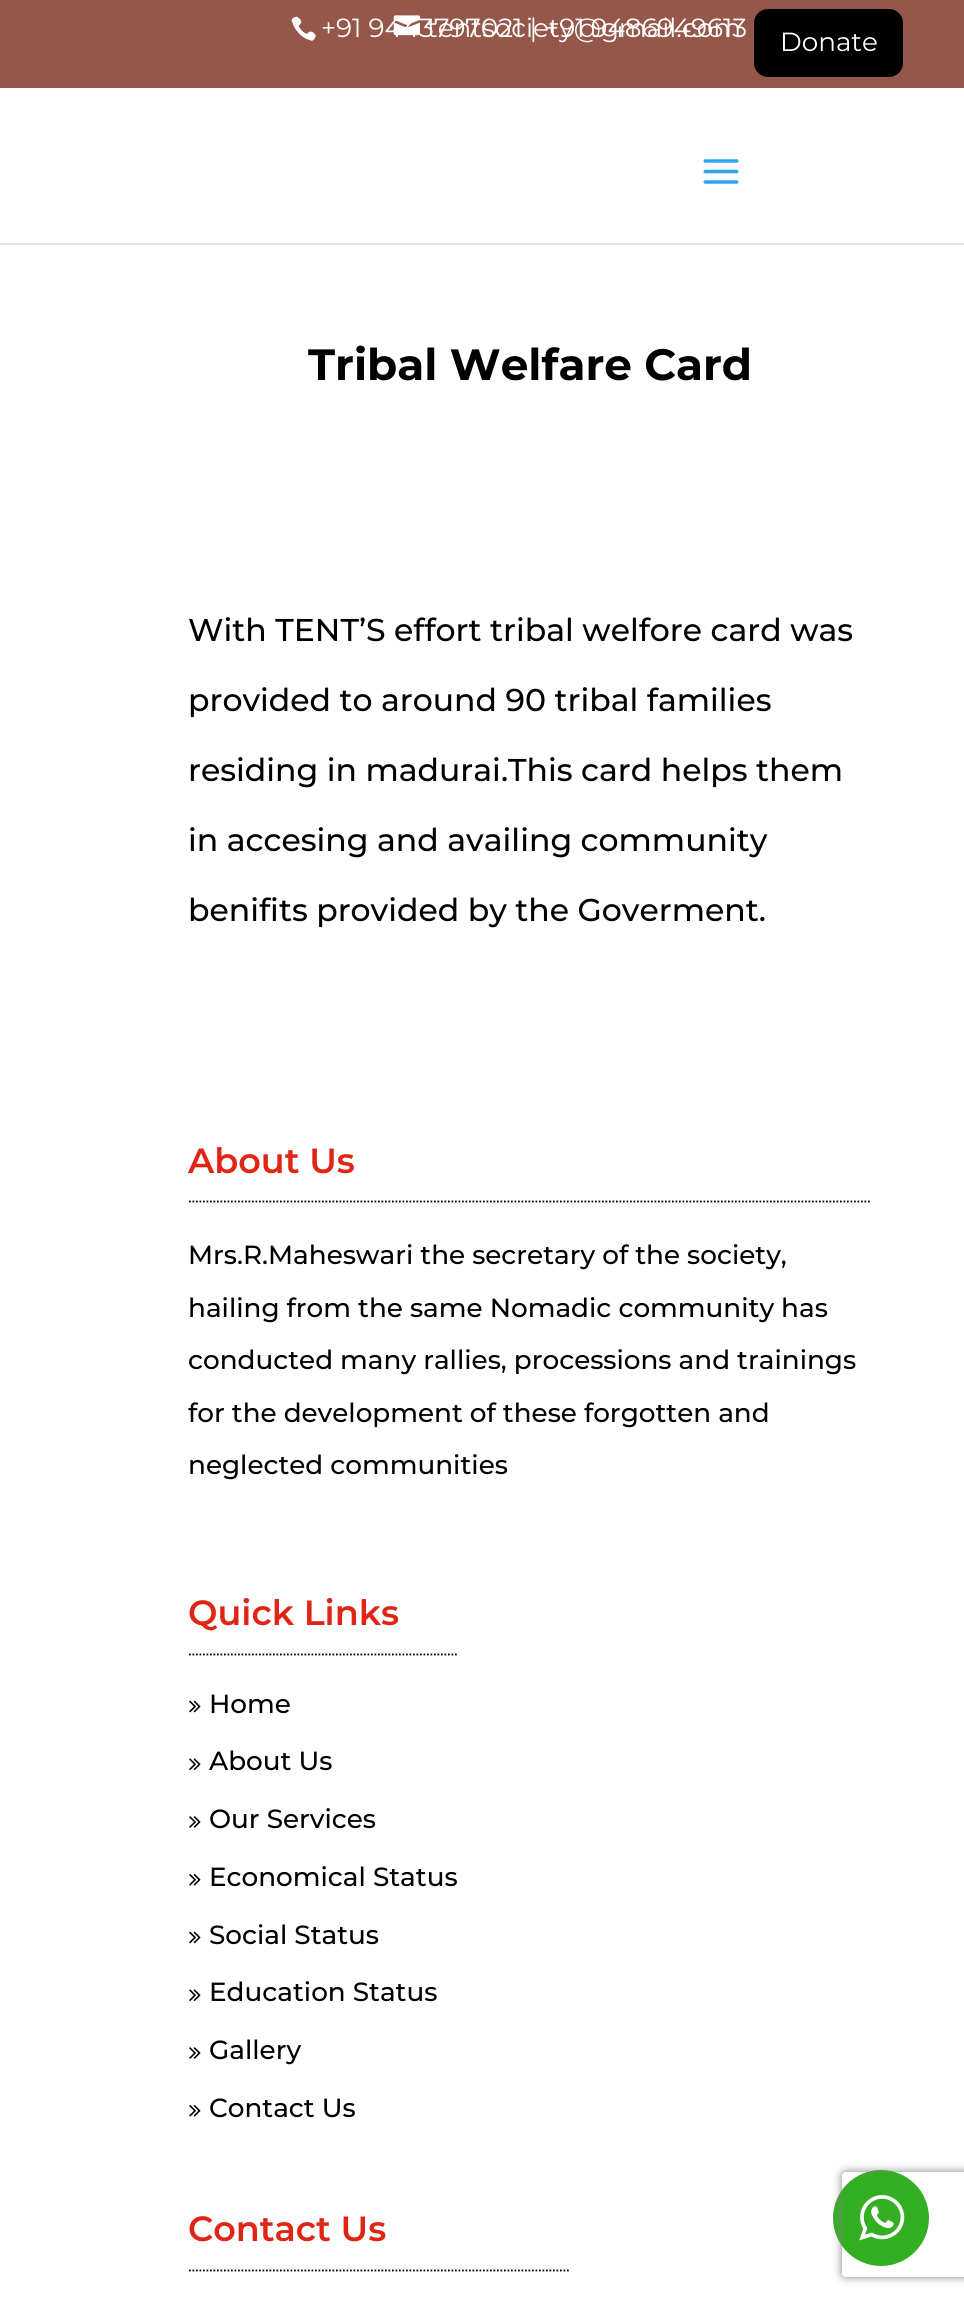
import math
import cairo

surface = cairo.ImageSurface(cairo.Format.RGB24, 964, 2301)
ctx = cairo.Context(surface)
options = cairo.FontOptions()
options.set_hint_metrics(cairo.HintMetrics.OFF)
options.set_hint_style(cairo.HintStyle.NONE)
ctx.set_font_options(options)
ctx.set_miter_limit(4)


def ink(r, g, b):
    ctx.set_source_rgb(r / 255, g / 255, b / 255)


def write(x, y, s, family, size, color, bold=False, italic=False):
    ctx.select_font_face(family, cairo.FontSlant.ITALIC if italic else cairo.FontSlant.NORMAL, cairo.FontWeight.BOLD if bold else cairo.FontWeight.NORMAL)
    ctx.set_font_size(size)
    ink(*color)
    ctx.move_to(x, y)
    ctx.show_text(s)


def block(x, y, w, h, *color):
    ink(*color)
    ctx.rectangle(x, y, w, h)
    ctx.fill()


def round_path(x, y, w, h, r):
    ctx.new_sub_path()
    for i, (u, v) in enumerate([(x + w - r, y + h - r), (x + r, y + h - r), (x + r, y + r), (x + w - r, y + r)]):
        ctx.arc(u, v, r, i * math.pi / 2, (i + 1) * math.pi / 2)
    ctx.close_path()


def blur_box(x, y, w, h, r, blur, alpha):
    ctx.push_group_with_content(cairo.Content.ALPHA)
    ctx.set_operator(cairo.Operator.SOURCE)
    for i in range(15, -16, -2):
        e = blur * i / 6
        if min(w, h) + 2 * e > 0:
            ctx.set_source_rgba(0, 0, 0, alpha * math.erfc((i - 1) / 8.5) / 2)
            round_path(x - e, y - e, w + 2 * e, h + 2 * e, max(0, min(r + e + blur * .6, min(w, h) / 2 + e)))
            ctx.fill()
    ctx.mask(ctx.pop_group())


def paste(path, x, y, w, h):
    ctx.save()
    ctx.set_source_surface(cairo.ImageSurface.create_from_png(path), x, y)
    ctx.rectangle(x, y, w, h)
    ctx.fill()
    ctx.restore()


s1 = dict(family="Montserrat", size=26.25, color=(255, 255, 255))
s2 = dict(family="Montserrat", size=43.75, color=(0, 0, 0), bold=True)
s3 = dict(family="Montserrat Medium", size=31.5, color=(0, 0, 0))
s4 = dict(family="Montserrat SemiBold", size=35, color=(224, 37, 20))
s5 = dict(family="Montserrat Medium", size=26.25, color=(0, 0, 0))

ink(255, 255, 255)
ctx.paint()
block(0, 0, 964, 88, 149, 87, 74)
paste("pic1.png", 291, 16, 25, 25)
write(321, 37, "+91 9443797021 | +91 9486949613", **s1)
paste("pic2.png", 393, 15, 27, 21)
write(427, 37, "tentsociety@gmail.com", **s1)
ink(0, 0, 0)
round_path(754, 9, 149, 68, 14)
ctx.fill()
write(780, 51, "Donate", **s1)
block(0, 243, 964, 2, 230, 230, 230)
paste("pic3.png", 703, 159, 36, 25)
write(308, 380, "Tribal Welfare Card", **s2)
write(188, 641, "With TENT’S effort tribal welfore card was", **s3)
write(188, 711, "provided to around 90 tribal families", **s3)
write(188, 781, "residing in madurai.This card helps them", **s3)
write(188, 851, "in accesing and availing community", **s3)
write(188, 921, "benifits provided by the Goverment.", **s3)
ctx.new_path()
ctx.move_to(189, 1201.5)
ctx.line_to(871.5, 1201.5)
ctx.set_line_width(1.8)
ctx.set_dash([1.75, 1.75])
ctx.stroke()
write(188, 1173, "About Us", **s4)
write(188, 1264, "Mrs.R.Maheswari the secretary of the society,", **s5)
write(188, 1317, "hailing from the same Nomadic community has", **s5)
write(188, 1369, "conducted many rallies, processions and trainings", **s5)
write(188, 1422, "for the development of these forgotten and", **s5)
write(188, 1474, "neglected communities", **s5)
ctx.new_path()
ctx.move_to(189, 1654.5)
ctx.line_to(457, 1654.5)
ctx.stroke()
write(188, 1625, "Quick Links", **s4)
paste("pic4.png", 189, 1700, 12, 13)
write(209, 1713, "Home", **s5)
paste("pic5.png", 189, 1758, 12, 12)
write(209, 1770, "About Us", **s5)
paste("pic6.png", 189, 1816, 12, 12)
write(209, 1828, "Our Services", **s5)
paste("pic7.png", 189, 1874, 12, 12)
write(209, 1886, "Economical Status", **s5)
paste("pic4.png", 189, 1931, 12, 13)
write(209, 1944, "Social Status", **s5)
paste("pic5.png", 189, 1989, 12, 12)
write(209, 2001, "Education Status", **s5)
paste("pic6.png", 189, 2047, 12, 12)
write(209, 2059, "Gallery", **s5)
paste("pic7.png", 189, 2105, 12, 12)
write(209, 2117, "Contact Us", **s5)
ctx.new_path()
ctx.move_to(189, 2270.5)
ctx.line_to(569, 2270.5)
ctx.stroke()
write(188, 2241, "Contact Us", **s4)
ink(52, 175, 35)
ctx.new_path()
ctx.arc(881, 2218, 48, 0, 2 * math.pi)
ctx.fill()
paste("pic8.png", 859, 2195, 46, 46)
ctx.save()
ctx.set_fill_rule(cairo.FillRule.EVEN_ODD)
ctx.new_path()
ctx.move_to(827, 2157)
ctx.line_to(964, 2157)
ctx.line_to(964, 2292)
ctx.line_to(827, 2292)
ctx.close_path()
ctx.move_to(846, 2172)
ctx.line_to(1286, 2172)
ctx.curve_to(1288, 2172, 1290, 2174, 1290, 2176)
ctx.line_to(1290, 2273)
ctx.curve_to(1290, 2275, 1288, 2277, 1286, 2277)
ctx.line_to(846, 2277)
ctx.curve_to(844, 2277, 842, 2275, 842, 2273)
ctx.line_to(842, 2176)
ctx.curve_to(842, 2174, 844, 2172, 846, 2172)
ctx.close_path()
ctx.clip()
ink(128, 128, 128)
blur_box(842, 2172, 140, 105, 4, 4.5, 1)
ctx.restore()
surface.write_to_png("screenshot.png")
